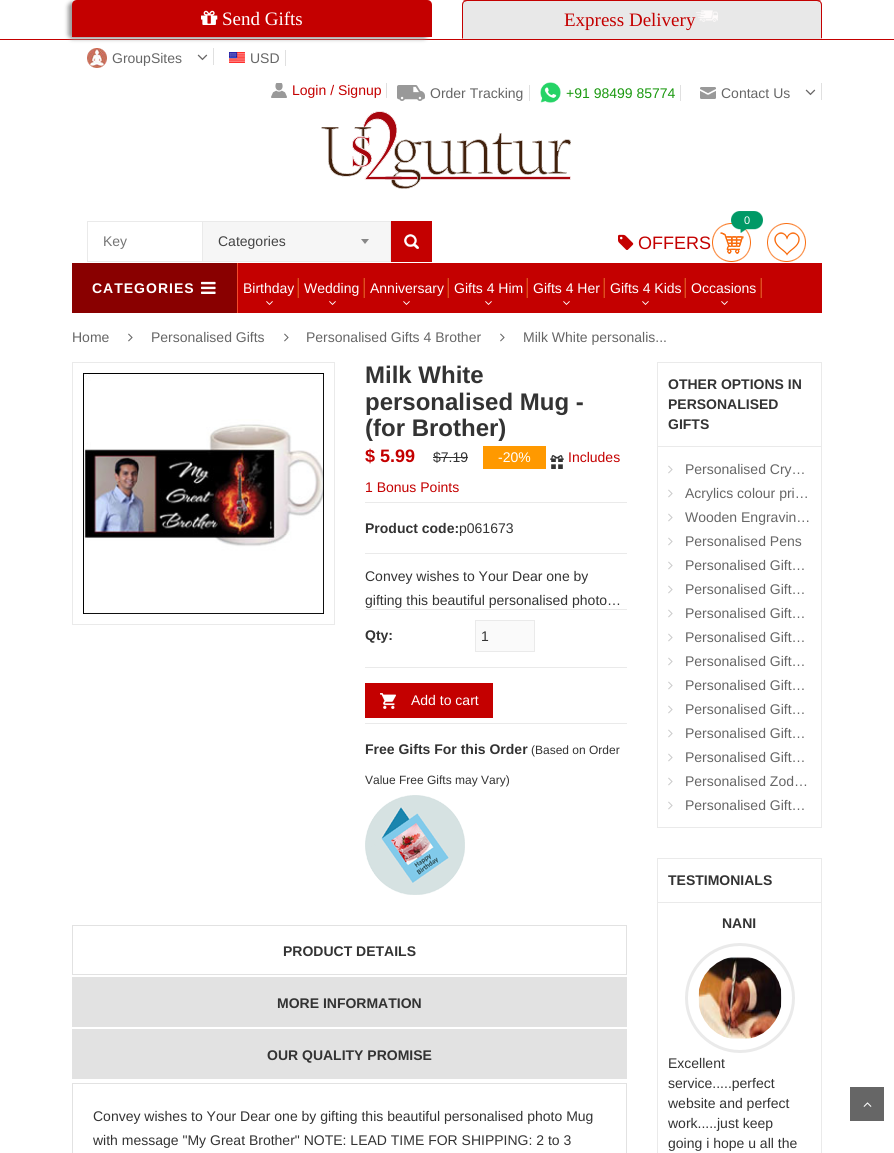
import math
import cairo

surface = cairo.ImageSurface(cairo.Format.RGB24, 894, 1153)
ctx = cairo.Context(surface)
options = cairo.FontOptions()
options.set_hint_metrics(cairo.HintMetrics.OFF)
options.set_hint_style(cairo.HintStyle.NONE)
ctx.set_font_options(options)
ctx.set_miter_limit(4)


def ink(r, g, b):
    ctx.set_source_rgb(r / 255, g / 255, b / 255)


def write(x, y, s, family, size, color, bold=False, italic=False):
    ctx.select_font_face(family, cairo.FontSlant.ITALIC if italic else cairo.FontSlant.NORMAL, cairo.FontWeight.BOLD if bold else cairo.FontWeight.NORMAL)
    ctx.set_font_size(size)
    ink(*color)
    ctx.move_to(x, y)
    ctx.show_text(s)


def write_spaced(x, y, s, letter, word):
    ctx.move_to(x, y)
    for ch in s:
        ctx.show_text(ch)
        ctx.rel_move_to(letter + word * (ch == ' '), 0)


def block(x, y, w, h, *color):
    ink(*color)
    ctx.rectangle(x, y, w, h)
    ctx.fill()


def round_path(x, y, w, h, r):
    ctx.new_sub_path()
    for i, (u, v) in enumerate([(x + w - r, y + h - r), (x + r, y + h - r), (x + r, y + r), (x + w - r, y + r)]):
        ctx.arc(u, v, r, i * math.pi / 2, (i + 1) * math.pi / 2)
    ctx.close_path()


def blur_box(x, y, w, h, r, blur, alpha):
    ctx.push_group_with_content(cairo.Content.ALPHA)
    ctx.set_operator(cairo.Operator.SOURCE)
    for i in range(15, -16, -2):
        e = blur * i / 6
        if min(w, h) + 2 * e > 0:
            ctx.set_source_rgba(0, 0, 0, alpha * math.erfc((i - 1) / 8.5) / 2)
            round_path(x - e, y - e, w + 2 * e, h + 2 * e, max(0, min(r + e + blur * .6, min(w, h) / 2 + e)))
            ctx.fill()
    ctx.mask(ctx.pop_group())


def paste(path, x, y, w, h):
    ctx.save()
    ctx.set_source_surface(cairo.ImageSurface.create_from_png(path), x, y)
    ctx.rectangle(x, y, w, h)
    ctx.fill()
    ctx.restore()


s1 = dict(family="Liberation Serif", size=19, color=(255, 255, 255))
s2 = dict(family="Liberation Serif", size=19, color=(196, 0, 0))
s3 = dict(family="Liberation Sans", size=14, color=(102, 102, 102))
s4 = dict(family="Liberation Sans", size=14, color=(196, 0, 0))
s5 = dict(family="Liberation Sans", size=14, color=(26, 153, 15))
s6 = dict(family="Liberation Sans", size=14, color=(117, 117, 117))
s7 = dict(family="Liberation Sans", size=14, color=(68, 68, 68))
s8 = dict(family="Liberation Sans", size=11, color=(255, 255, 255))
s9 = dict(family="Liberation Sans", size=18, color=(196, 0, 0))
s10 = dict(family="Liberation Sans", size=14, color=(255, 255, 255))
s11 = dict(family="Liberation Sans", size=24, color=(51, 51, 51), bold=True)
s12 = dict(family="Liberation Sans", size=18, color=(196, 0, 0), bold=True)
s13 = dict(family="Liberation Sans", size=14, color=(51, 51, 51))
s14 = dict(family="Liberation Sans", size=14, color=(51, 51, 51), bold=True)
s15 = dict(family="Liberation Sans", size=12, color=(51, 51, 51))

ink(255, 255, 255)
ctx.paint()
block(0, 39, 894, 1, 196, 0, 0)
ink(156, 156, 156)
blur_box(68, 2, 360, 37, 5, 2, 1)
ink(196, 0, 0)
ctx.new_path()
ctx.move_to(77, 0)
ctx.line_to(427, 0)
ctx.curve_to(430, 0, 432, 2, 432, 5)
ctx.line_to(432, 37)
ctx.line_to(72, 37)
ctx.line_to(72, 5)
ctx.curve_to(72, 2, 74, 0, 77, 0)
ctx.close_path()
ctx.fill()
paste("pic1.png", 201, 10, 17, 15)
write(222, 25, "Send Gifts", **s1)
ink(232, 232, 232)
ctx.new_path()
ctx.move_to(467, 0)
ctx.line_to(817, 0)
ctx.curve_to(820, 0, 822, 2, 822, 5)
ctx.line_to(822, 39)
ctx.line_to(462, 39)
ctx.line_to(462, 5)
ctx.curve_to(462, 2, 464, 0, 467, 0)
ctx.close_path()
ctx.fill()
ink(196, 0, 0)
ctx.new_path()
ctx.move_to(467, 0)
ctx.curve_to(466, 0, 464, 0, 463, 1)
ctx.line_to(464, 2)
ctx.line_to(467, 1)
ctx.line_to(817, 1)
ctx.line_to(820, 2)
ctx.line_to(821, 1)
ctx.curve_to(820, 0, 818, 0, 817, 0)
ctx.close_path()
ctx.fill()
ctx.new_path()
ctx.move_to(822, 39)
ctx.line_to(822, 5)
ctx.curve_to(822, 3.5, 821.5, 2, 820.5, 1.5)
ctx.line_to(820, 2)
ctx.curve_to(820.5, 3, 821, 4, 821, 5)
ctx.line_to(821, 38)
ctx.close_path()
ctx.fill()
ink(232, 232, 232)
ctx.new_path()
ctx.move_to(822, 39)
ctx.line_to(821, 38)
ctx.line_to(463, 38)
ctx.line_to(462, 39)
ctx.close_path()
ctx.fill()
ink(196, 0, 0)
ctx.new_path()
ctx.move_to(462, 39)
ctx.line_to(463, 38)
ctx.line_to(463, 5)
ctx.curve_to(463, 4, 463.5, 3, 464, 2)
ctx.line_to(463.5, 1.5)
ctx.curve_to(462.5, 2, 462, 3.5, 462, 5)
ctx.close_path()
ctx.fill()
write(564, 26, "Express Delivery", **s2)
paste("pic2.png", 696, 10, 22, 12)
block(213, 48, 1, 17, 224, 224, 224)
paste("pic3.png", 87, 48, 20, 20)
write(112, 63, "GroupSites", **s3)
paste("pic4.png", 197, 54, 11, 7)
block(285, 50, 1, 16, 224, 224, 224)
paste("pic5.png", 229, 52, 16, 11)
write(250, 63, "USD", **s3)
block(386, 83, 1, 15, 224, 224, 224)
paste("pic6.png", 271, 83, 16, 15)
write(292, 95, "Login / Signup", **s4)
block(529, 85, 1, 16, 224, 224, 224)
paste("pic7.png", 397, 85, 28, 16)
write(430, 98, "Order Tracking", **s3)
block(680, 85, 1, 16, 224, 224, 224)
paste("pic8.png", 540, 82, 21, 21)
write(566, 98, "+91 98499 85774", **s5)
block(821, 83, 1, 17, 224, 224, 224)
paste("pic9.png", 700, 87, 16, 12)
write(721, 98, "Contact Us", **s3)
paste("pic4.png", 805, 89, 11, 7)
paste("pic10.png", 321, 111, 250, 78)
ctx.rectangle(87.5, 221.5, 344, 40)
ink(234, 234, 234)
ctx.set_line_width(1)
ctx.stroke()
write(103, 246, "Key", **s6)
block(203, 222, 187, 39, 246, 246, 246)
block(202, 222, 1, 39, 234, 234, 234)
block(390, 222, 1, 40, 234, 234, 234)
write(218, 246, "Categories", **s7)
ink(136, 136, 136)
ctx.new_path()
ctx.move_to(361, 239)
ctx.line_to(369, 239)
ctx.line_to(365, 244)
ctx.close_path()
ctx.fill()
block(391, 221, 41, 41, 196, 0, 0)
paste("pic11.png", 404, 234, 15, 15)
paste("pic12.png", 712, 223, 39, 39)
paste("pic13.png", 731, 211, 32, 22)
write(744, 224, "0", **s8)
paste("pic14.png", 618, 234, 16, 16)
write(638, 249, "OFFERS", **s9)
paste("pic15.png", 767, 223, 39, 39)
block(72, 263, 165, 50, 137, 0, 0)
ctx.select_font_face("Liberation Sans", cairo.FontSlant.NORMAL, cairo.FontWeight.BOLD)
ctx.set_font_size(14)
ink(255, 255, 255)
write_spaced(92, 293, "CATEGORIES", 1, 0)
paste("pic16.png", 201, 281, 15, 13)
block(238, 263, 584, 50, 196, 0, 0)
block(237, 263, 1, 50, 244, 74, 42)
paste("pic17.png", 297, 278, 2, 20)
write(243, 293, "Birthday", **s10)
paste("pic18.png", 266, 301, 7, 4)
paste("pic17.png", 363, 278, 2, 20)
write(304, 293, "Wedding", **s10)
paste("pic18.png", 329, 301, 7, 4)
paste("pic17.png", 447, 278, 2, 20)
write(370, 293, "Anniversary", **s10)
paste("pic18.png", 403, 301, 7, 4)
paste("pic17.png", 526, 278, 2, 20)
write(454, 293, "Gifts 4 Him", **s10)
paste("pic18.png", 485, 301, 7, 4)
paste("pic17.png", 603, 278, 2, 20)
write(533, 293, "Gifts 4 Her", **s10)
paste("pic18.png", 563, 301, 7, 4)
paste("pic17.png", 684, 278, 2, 20)
write(610, 293, "Gifts 4 Kids", **s10)
paste("pic18.png", 642, 301, 7, 4)
paste("pic17.png", 760, 278, 2, 20)
write(691, 293, "Occasions", **s10)
paste("pic18.png", 721, 301, 7, 4)
write(72, 342, "Home", **s3)
paste("pic19.png", 128, 333, 5, 9)
write(151, 342, "Personalised Gifts", **s3)
paste("pic19.png", 284, 333, 5, 9)
write(306, 342, "Personalised Gifts 4 Brother", **s3)
paste("pic19.png", 500, 333, 5, 9)
write(523, 342, "Milk White personalis...", **s3)
ctx.rectangle(72.5, 362.5, 262, 262)
ink(234, 234, 234)
ctx.stroke()
paste("pic20.png", 83, 373, 241, 241)
write(365, 383, "Milk White", **s11)
write(365, 410, "personalised Mug -", **s11)
write(365, 436, "(for Brother)", **s11)
write(365, 462, "$ 5.99", **s12)
paste("pic21.png", 550, 455, 14, 14)
write(568, 462, "Includes", **s4)
write(365, 492, "1 Bonus Points", **s4)
write(433, 462, "$7.19", **s13)
block(433, 457, 35, 1, 51, 51, 51)
block(483, 446, 63, 23, 255, 153, 0)
write(498, 462, "-20%", **s10)
block(365, 502, 262, 1, 234, 234, 234)
write(365, 533, "Product code:", **s14)
write(459, 533, "p061673", **s13)
block(365, 553, 262, 1, 234, 234, 234)
write(365, 581, "Convey wishes to Your Dear one by", **s13)
write(365, 605, "gifting this beautiful personalised photo…", **s13)
block(365, 609, 262, 1, 234, 234, 234)
write(365, 640, "Qty:", **s14)
ink(250, 250, 250)
ctx.rectangle(475.5, 620.5, 59, 31)
ctx.fill_preserve()
ink(234, 234, 234)
ctx.stroke()
write(481, 641, "1", **s13)
block(365, 667, 262, 1, 234, 234, 234)
block(365, 683, 128, 35, 196, 0, 0)
paste("pic22.png", 380, 693, 16, 16)
write(411, 705, "Add to cart", **s10)
block(365, 723, 262, 1, 234, 234, 234)
write(365, 754, "Free Gifts For this Order", **s14)
write(531, 754, "(Based on Order", **s15)
write(365, 784, "Value Free Gifts may Vary)", **s15)
paste("pic23.png", 365, 795, 100, 100)
block(72, 925, 555, 50, 226, 226, 226)
block(73, 926, 553, 48, 255, 255, 255)
write(283, 956, "PRODUCT DETAILS", **s14)
block(72, 977, 555, 50, 226, 226, 226)
write(277, 1008, "MORE INFORMATION", **s14)
block(72, 1029, 555, 50, 226, 226, 226)
write(267, 1060, "OUR QUALITY PROMISE", **s14)
ctx.rectangle(72.5, 1083.5, 554, 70)
ink(226, 226, 226)
ctx.stroke()
write(93, 1121, "Convey wishes to Your Dear one by gifting this beautiful personalised photo Mug", **s13)
write(93, 1145, "with message \"My Great Brother\" NOTE: LEAD TIME FOR SHIPPING: 2 to 3", **s13)
ctx.rectangle(657.5, 362.5, 164, 465)
ink(234, 234, 234)
ctx.stroke()
block(658, 446, 163, 1, 234, 234, 234)
write(668, 389, "OTHER OPTIONS IN", **s14)
write(668, 409, "PERSONALISED", **s14)
write(668, 429, "GIFTS", **s14)
paste("pic24.png", 668, 465, 5, 9)
write(685, 474, "Personalised Cry…", **s3)
paste("pic24.png", 668, 489, 5, 9)
write(685, 498, "Acrylics colour pri…", **s3)
paste("pic24.png", 668, 513, 5, 9)
write(685, 522, "Wooden Engravin…", **s3)
paste("pic24.png", 668, 537, 5, 9)
write(685, 546, "Personalised Pens", **s3)
paste("pic24.png", 668, 561, 5, 9)
write(685, 570, "Personalised Gift…", **s3)
paste("pic24.png", 668, 585, 5, 9)
write(685, 594, "Personalised Gift…", **s3)
paste("pic24.png", 668, 609, 5, 9)
write(685, 618, "Personalised Gift…", **s3)
paste("pic24.png", 668, 633, 5, 9)
write(685, 642, "Personalised Gift…", **s3)
paste("pic24.png", 668, 657, 5, 9)
write(685, 666, "Personalised Gift…", **s3)
paste("pic24.png", 668, 681, 5, 9)
write(685, 690, "Personalised Gift…", **s3)
paste("pic24.png", 668, 705, 5, 9)
write(685, 714, "Personalised Gift…", **s3)
paste("pic24.png", 668, 729, 5, 9)
write(685, 738, "Personalised Gift…", **s3)
paste("pic24.png", 668, 753, 5, 9)
write(685, 762, "Personalised Gift…", **s3)
paste("pic24.png", 668, 777, 5, 9)
write(685, 786, "Personalised Zod…", **s3)
paste("pic24.png", 668, 801, 5, 9)
write(685, 810, "Personalised Gift…", **s3)
ctx.rectangle(657.5, 858.5, 164, 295)
ink(234, 234, 234)
ctx.stroke()
block(658, 902, 163, 1, 234, 234, 234)
write(668, 885, "TESTIMONIALS", **s14)
write(722, 928, "NANI", **s14)
ctx.new_path()
ctx.arc(740, 998, 53.5, 0, 2 * math.pi)
ink(234, 234, 234)
ctx.set_line_width(3)
ctx.stroke()
paste("pic25.png", 698, 956, 84, 84)
write(668, 1068, "Excellent", **s13)
write(668, 1088, "service.....perfect", **s13)
write(668, 1108, "website and perfect", **s13)
write(668, 1128, "work.....just keep", **s13)
write(668, 1148, "going i hope u all the", **s13)
block(850, 1087, 34, 34, 102, 102, 102)
paste("pic26.png", 863, 1102, 9, 5)
surface.write_to_png("screenshot.png")
